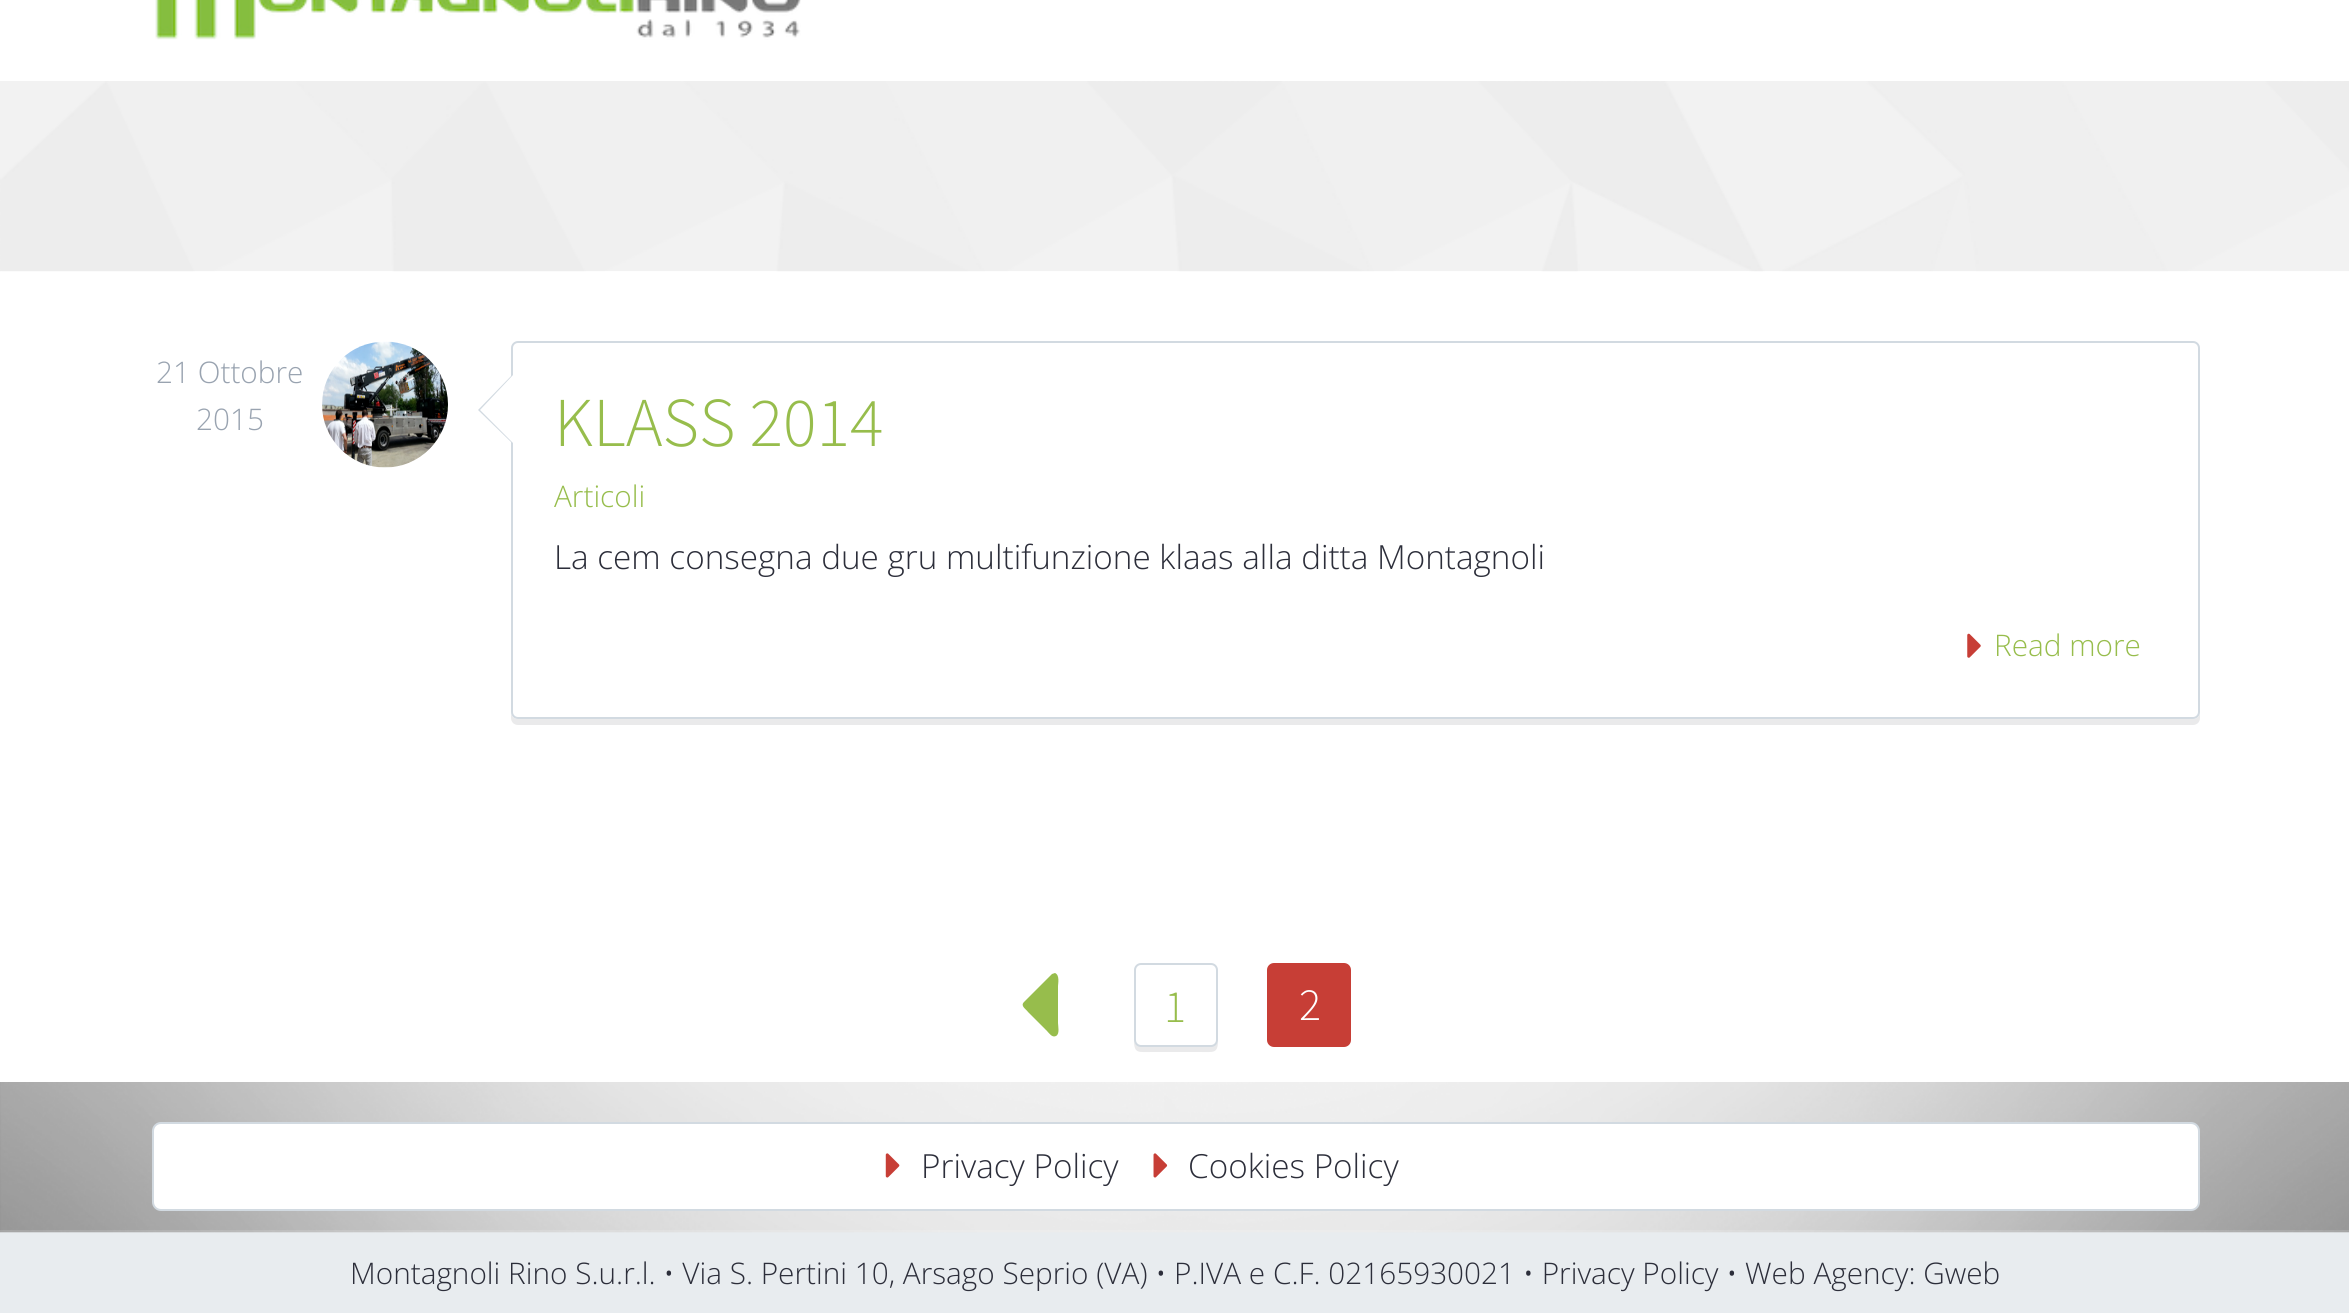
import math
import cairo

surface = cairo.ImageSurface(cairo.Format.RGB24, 2349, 1313)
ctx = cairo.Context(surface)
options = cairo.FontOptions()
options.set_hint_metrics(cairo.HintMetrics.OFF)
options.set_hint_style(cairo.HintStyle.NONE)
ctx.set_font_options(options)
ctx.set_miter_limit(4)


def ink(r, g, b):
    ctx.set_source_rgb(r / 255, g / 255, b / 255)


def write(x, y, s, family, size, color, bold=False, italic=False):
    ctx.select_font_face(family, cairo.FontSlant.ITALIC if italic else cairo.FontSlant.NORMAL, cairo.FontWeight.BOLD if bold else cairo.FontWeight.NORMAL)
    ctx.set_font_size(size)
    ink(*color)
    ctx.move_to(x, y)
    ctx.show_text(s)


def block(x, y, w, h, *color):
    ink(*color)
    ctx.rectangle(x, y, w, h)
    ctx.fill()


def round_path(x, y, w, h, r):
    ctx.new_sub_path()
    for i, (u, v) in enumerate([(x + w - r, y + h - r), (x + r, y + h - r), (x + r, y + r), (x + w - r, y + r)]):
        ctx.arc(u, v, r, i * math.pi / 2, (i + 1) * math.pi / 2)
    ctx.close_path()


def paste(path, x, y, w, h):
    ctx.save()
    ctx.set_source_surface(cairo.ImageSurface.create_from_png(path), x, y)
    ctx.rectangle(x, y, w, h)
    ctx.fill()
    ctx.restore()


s1 = dict(family="Open Sans Light", size=29.75, color=(153, 163, 176))
s2 = dict(family="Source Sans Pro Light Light", size=70, color=(151, 189, 76))
s3 = dict(family="Open Sans Light", size=29.75, color=(151, 189, 76))
s4 = dict(family="Open Sans Light", size=33.25, color=(44, 46, 58))
s5 = dict(family="Source Sans Pro Light Light", size=46, color=(151, 189, 76))
s6 = dict(family="Source Sans Pro Light Light", size=46, color=(255, 255, 255))
s7 = dict(family="Open Sans Light", size=29.75, color=(44, 46, 58))

ink(232, 236, 239)
ctx.paint()
block(0, 0, 2349, 81, 255, 255, 255)
paste("pic1.png", 155, 0, 646, 40)
block(0, 81, 2349, 190, 243, 243, 243)
block(0, 271, 2349, 811, 255, 255, 255)
paste("pic2.png", 0, 81, 2349, 191)
write(156, 383, "21 Ottobre", **s1)
write(196, 430, "2015", **s1)
paste("pic3.png", 322, 341, 126, 127)
ink(234, 234, 235)
ctx.new_path()
ctx.move_to(511, 712)
ctx.line_to(511, 718)
ctx.curve_to(511, 722, 514, 725, 518, 725)
ctx.line_to(2193, 725)
ctx.curve_to(2197, 725, 2200, 722, 2200, 718)
ctx.line_to(2200, 352)
ctx.line_to(2200, 712)
ctx.curve_to(2200, 716, 2197, 719, 2193, 719)
ctx.line_to(518, 719)
ctx.curve_to(514, 719, 511, 716, 511, 712)
ctx.close_path()
ctx.fill()
round_path(512, 342, 1687, 376, 6)
ink(210, 218, 225)
ctx.stroke()
ctx.new_path()
ctx.move_to(513, 374)
ctx.line_to(513, 444)
ctx.line_to(478, 410)
ctx.close_path()
ctx.fill()
ink(255, 255, 255)
ctx.new_path()
ctx.move_to(514, 374)
ctx.line_to(514, 444)
ctx.line_to(480, 410)
ctx.close_path()
ctx.fill()
write(554, 446, "KLASS 2014", **s2)
write(554, 507, "Articoli", **s3)
write(554, 569, "La cem consegna due gru multifunzione klaas alla ditta Montagnoli", **s4)
paste("pic4.png", 1967, 633, 14, 25)
write(1994, 656, "Read more", **s3)
ctx.new_path()
ctx.move_to(1024, 1002)
ctx.line_to(1052, 974)
ctx.line_to(1055, 973)
ctx.curve_to(1060, 975, 1058, 984, 1058, 986)
ctx.line_to(1058, 1023)
ctx.curve_to(1058, 1026, 1060, 1034, 1056, 1036)
ctx.curve_to(1052, 1038, 1049, 1033, 1047, 1031)
ctx.line_to(1028, 1012)
ctx.curve_to(1026, 1009, 1020, 1006, 1024, 1002)
ctx.close_path()
ctx.fill()
ink(234, 234, 235)
ctx.new_path()
ctx.move_to(1134, 1040)
ctx.curve_to(1134, 1054, 1138, 1052, 1153, 1052)
ctx.line_to(1199, 1052)
ctx.curve_to(1214, 1052, 1218, 1054, 1218, 1040)
ctx.curve_to(1218, 1043, 1215, 1046, 1211, 1046)
ctx.line_to(1141, 1046)
ctx.curve_to(1137, 1046, 1134, 1043, 1134, 1040)
ctx.close_path()
ctx.fill()
round_path(1135, 964, 82, 82, 6)
ink(210, 218, 225)
ctx.stroke()
write(1164, 1022, "1", **s5)
ink(199, 62, 54)
round_path(1267, 963, 84, 84, 7)
ctx.fill()
write(1299, 1020, "2", **s6)
paste("pic5.png", 0, 1082, 2349, 151)
ctx.set_source_rgba(1, 1, 1, 0.13)
ctx.rectangle(0, 1230, 2349, 2)
ctx.fill()
ink(255, 255, 255)
round_path(153, 1123, 2046, 87, 8)
ctx.fill_preserve()
ink(210, 218, 225)
ctx.stroke()
paste("pic6.png", 885, 1153, 15, 25)
write(921, 1178, "Privacy Policy", **s4)
paste("pic7.png", 1153, 1153, 15, 25)
write(1188, 1178, "Cookies Policy", **s4)
write(350, 1284, "Montagnoli Rino S.u.r.l. • Via S. Pertini 10, Arsago Seprio (VA) • P.IVA e C.F. 02165930021 • Privacy Policy • Web Agency: Gweb", **s7)
surface.write_to_png("screenshot.png")
